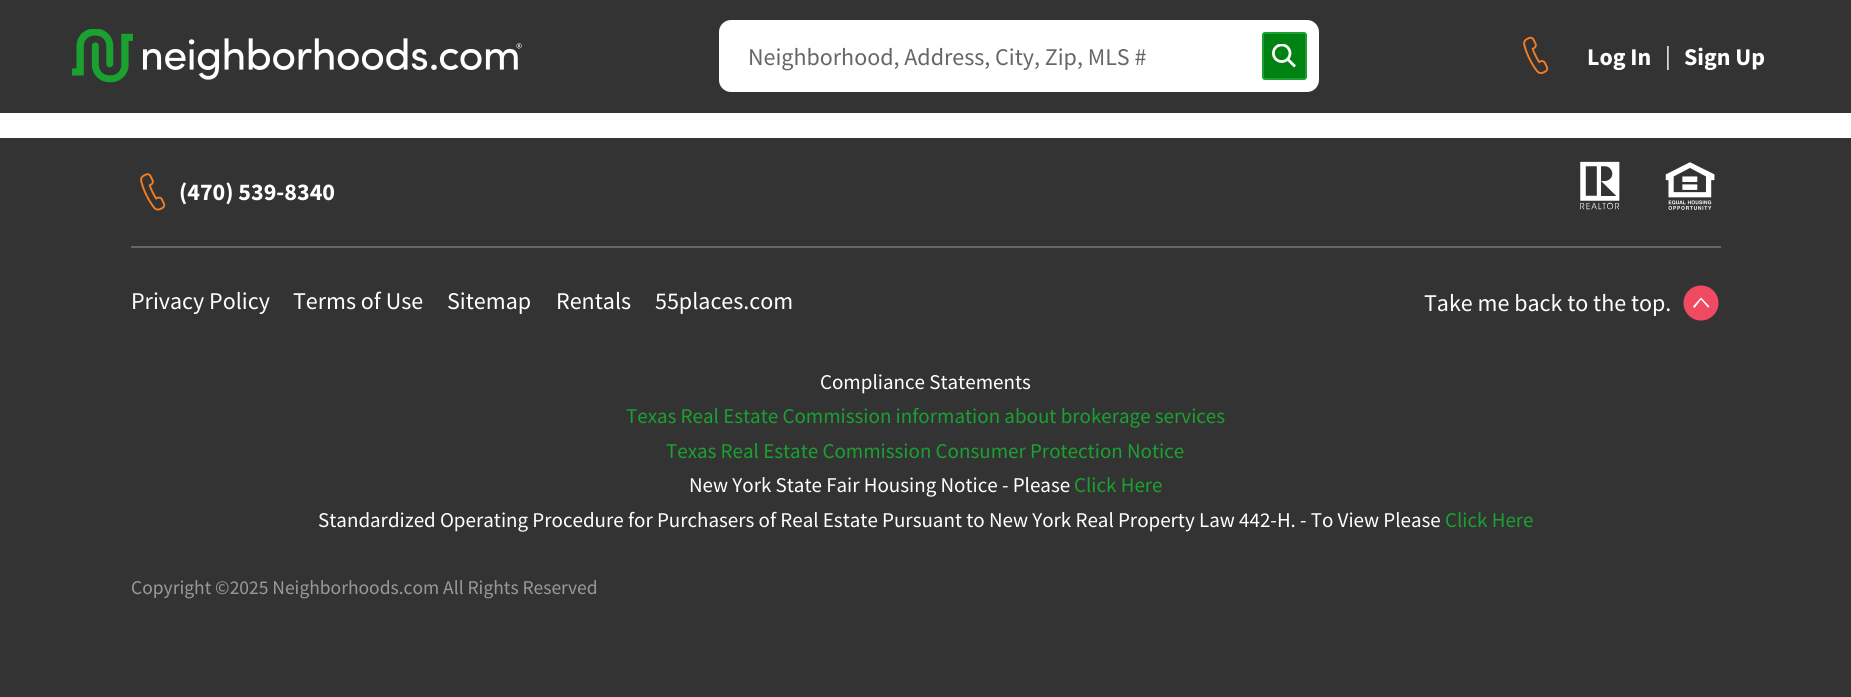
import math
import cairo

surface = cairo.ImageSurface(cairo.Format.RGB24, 1851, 697)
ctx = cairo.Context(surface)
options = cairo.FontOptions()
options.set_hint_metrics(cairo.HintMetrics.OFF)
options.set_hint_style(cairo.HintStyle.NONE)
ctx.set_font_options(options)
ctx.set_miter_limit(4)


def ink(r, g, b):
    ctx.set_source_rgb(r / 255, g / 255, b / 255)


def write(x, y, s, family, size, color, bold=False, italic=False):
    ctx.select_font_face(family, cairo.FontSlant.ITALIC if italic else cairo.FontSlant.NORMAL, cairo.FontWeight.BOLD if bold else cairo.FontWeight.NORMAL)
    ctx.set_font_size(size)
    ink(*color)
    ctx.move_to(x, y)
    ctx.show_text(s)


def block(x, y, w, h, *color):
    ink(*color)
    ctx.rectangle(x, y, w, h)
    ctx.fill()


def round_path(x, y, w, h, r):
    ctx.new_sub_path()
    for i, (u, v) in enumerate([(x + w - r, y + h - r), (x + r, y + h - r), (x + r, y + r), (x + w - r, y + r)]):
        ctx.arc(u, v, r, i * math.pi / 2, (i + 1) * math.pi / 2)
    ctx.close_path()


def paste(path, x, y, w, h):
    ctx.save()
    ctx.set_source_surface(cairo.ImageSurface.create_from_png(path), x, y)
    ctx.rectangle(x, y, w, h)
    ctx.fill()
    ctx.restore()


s1 = dict(family="Source Sans Pro", size=24, color=(102, 102, 102))
s2 = dict(family="Source Sans Pro", size=24, color=(255, 255, 255), bold=True)
s3 = dict(family="Source Sans Pro", size=24, color=(255, 255, 255))
s4 = dict(family="Source Sans Pro", size=21, color=(255, 255, 255))
s5 = dict(family="Source Sans Pro", size=21, color=(26, 161, 48))
s6 = dict(family="Source Sans Pro", size=19.5, color=(153, 153, 153))

ink(255, 255, 255)
ctx.paint()
block(0, 0, 1851, 113, 51, 51, 51)
paste("pic1.png", 72, 29, 450, 54)
ink(255, 255, 255)
round_path(719, 20, 600, 72, 12)
ctx.fill()
write(748, 65, "Neighborhood, Address, City, Zip, MLS #", **s1)
ink(0, 131, 18)
round_path(1263, 33, 43, 46, 2)
ctx.fill_preserve()
ink(26, 161, 48)
ctx.stroke()
paste("pic2.png", 1272, 44, 24, 24)
paste("pic3.png", 1523, 36, 26, 38)
write(1587, 65, "Log In", **s2)
write(1665, 64, "|", **s3)
write(1684, 65, "Sign Up", **s2)
block(0, 138, 1851, 559, 51, 51, 51)
block(131, 246, 1590, 2, 102, 102, 102)
paste("pic4.png", 140, 173, 26, 38)
write(179, 200, "(470) 539-8340", **s2)
paste("pic5.png", 1580, 161, 40, 49)
paste("pic6.png", 1665, 162, 50, 48)
write(131, 309, "Privacy Policy", **s3)
write(293, 309, "Terms of Use", **s3)
write(447, 309, "Sitemap", **s3)
write(556, 309, "Rentals", **s3)
write(655, 309, "55places.com", **s3)
write(1424, 311, "Take me back to the top.", **s3)
ink(240, 74, 99)
ctx.new_path()
ctx.arc(1701, 303, 17.5, 0, 2 * math.pi)
ctx.fill()
ink(255, 255, 255)
ctx.new_path()
ctx.move_to(1701, 299.5)
ctx.line_to(1694.5, 308)
ctx.line_to(1693, 306.5)
ctx.line_to(1701, 297.5)
ctx.line_to(1709.5, 306.5)
ctx.line_to(1708, 307.5)
ctx.close_path()
ctx.fill()
write(820, 389, "Compliance Statements", **s4)
write(626, 423, "Texas Real Estate Commission information about brokerage services", **s5)
write(666, 458, "Texas Real Estate Commission Consumer Protection Notice", **s5)
write(689, 492, "New York State Fair Housing Notice - Please", **s4)
write(1074, 492, "Click Here", **s5)
write(318, 527, "Standardized Operating Procedure for Purchasers of Real Estate Pursuant to New York Real Property Law 442-H. - To View Please", **s4)
write(1445, 527, "Click Here", **s5)
write(131, 594, "Copyright ©2025 Neighborhoods.com All Rights Reserved", **s6)
surface.write_to_png("screenshot.png")
